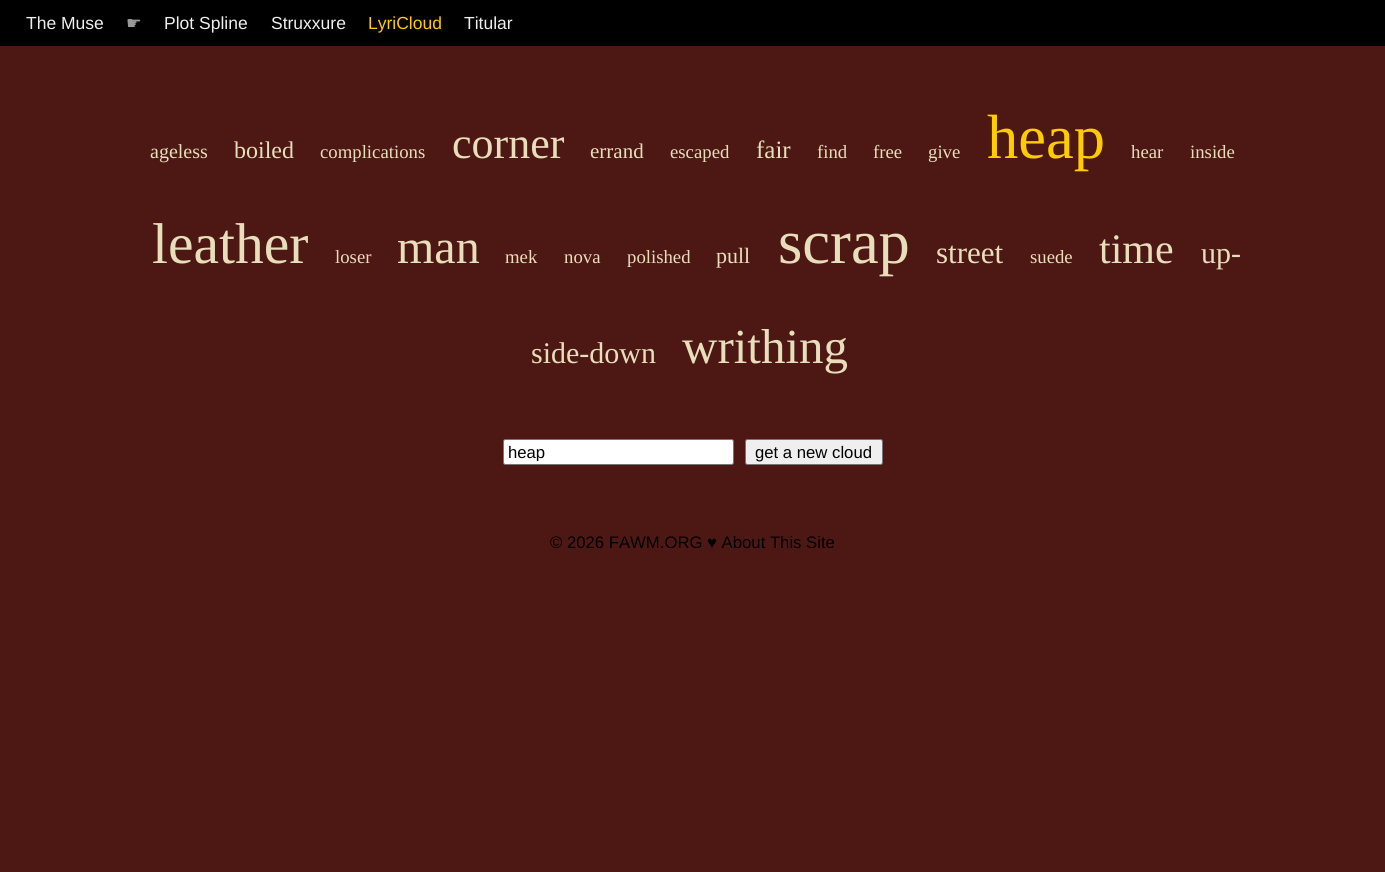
import math
import cairo

surface = cairo.ImageSurface(cairo.Format.RGB24, 1385, 872)
ctx = cairo.Context(surface)
options = cairo.FontOptions()
options.set_hint_metrics(cairo.HintMetrics.OFF)
options.set_hint_style(cairo.HintStyle.NONE)
ctx.set_font_options(options)
ctx.set_miter_limit(4)


def ink(r, g, b):
    ctx.set_source_rgb(r / 255, g / 255, b / 255)


def write(x, y, s, family, size, color, bold=False, italic=False):
    ctx.select_font_face(family, cairo.FontSlant.ITALIC if italic else cairo.FontSlant.NORMAL, cairo.FontWeight.BOLD if bold else cairo.FontWeight.NORMAL)
    ctx.set_font_size(size)
    ink(*color)
    ctx.move_to(x, y)
    ctx.show_text(s)


def block(x, y, w, h, *color):
    ink(*color)
    ctx.rectangle(x, y, w, h)
    ctx.fill()


def round_path(x, y, w, h, r):
    ctx.new_sub_path()
    for i, (u, v) in enumerate([(x + w - r, y + h - r), (x + r, y + h - r), (x + r, y + r), (x + w - r, y + r)]):
        ctx.arc(u, v, r, i * math.pi / 2, (i + 1) * math.pi / 2)
    ctx.close_path()


s1 = dict(family="Liberation Sans", size=17.5, color=(238, 238, 238))
s2 = dict(family="DejaVu Sans", size=17.5, color=(153, 153, 153))
s3 = dict(family="Liberation Sans", size=17.5, color=(255, 204, 0))
s4 = dict(family="Liberation Serif", size=20, color=(232, 222, 187))
s5 = dict(family="Liberation Serif", size=24, color=(232, 222, 187))
s6 = dict(family="Liberation Serif", size=18.75, color=(232, 222, 187))
s7 = dict(family="Liberation Serif", size=44, color=(232, 222, 187))
s8 = dict(family="Liberation Serif", size=21, color=(232, 222, 187))
s9 = dict(family="Liberation Serif", size=25, color=(232, 222, 187))
s10 = dict(family="Liberation Serif", size=62.5, color=(255, 204, 0))
s11 = dict(family="Liberation Serif", size=57.5, color=(232, 222, 187))
s12 = dict(family="Liberation Serif", size=48, color=(232, 222, 187))
s13 = dict(family="Liberation Serif", size=22, color=(232, 222, 187))
s14 = dict(family="Liberation Serif", size=62.5, color=(232, 222, 187))
s15 = dict(family="Liberation Serif", size=31, color=(232, 222, 187))
s16 = dict(family="Liberation Serif", size=42, color=(232, 222, 187))
s17 = dict(family="Liberation Serif", size=30, color=(232, 222, 187))
s18 = dict(family="Liberation Serif", size=49, color=(232, 222, 187))
s19 = dict(family="Liberation Sans", size=16.7, color=(0, 0, 0))

ink(77, 24, 20)
ctx.paint()
block(0, 0, 1385, 46, 0, 0, 0)
write(26, 29, "The Muse", **s1)
write(126, 29, "☛", **s2)
write(164, 29, "Plot Spline", **s1)
write(271, 29, "Struxxure", **s1)
write(368, 29, "LyriCloud", **s3)
write(464, 29, "Titular", **s1)
write(150, 158, "ageless", **s4)
write(234, 158, "boiled", **s5)
write(320, 158, "complications", **s6)
write(452, 158, "corner", **s7)
write(590, 158, "errand", **s8)
write(670, 158, "escaped", **s6)
write(756, 158, "fair", **s9)
write(817, 158, "find", **s6)
write(873, 158, "free", **s6)
write(928, 158, "give", **s6)
write(987, 158, "heap", **s10)
write(1131, 158, "hear", **s6)
write(1190, 158, "inside", **s6)
write(152, 263, "leather", **s11)
write(335, 263, "loser", **s6)
write(397, 263, "man", **s12)
write(505, 263, "mek", **s6)
write(564, 263, "nova", **s6)
write(627, 263, "polished", **s6)
write(716, 263, "pull", **s13)
write(778, 263, "scrap", **s14)
write(936, 263, "street", **s15)
write(1030, 263, "suede", **s6)
write(1099, 263, "time", **s16)
write(1201, 263, "up-", **s17)
write(531, 363, "side-down", **s17)
write(682, 363, "writhing", **s18)
ink(255, 255, 255)
round_path(503.5, 439.5, 230, 25, 2)
ctx.fill_preserve()
ink(118, 118, 118)
ctx.set_line_width(1)
ctx.stroke()
ctx.save()
ctx.rectangle(508, 443, 221, 18)
ctx.clip()
write(508, 458, "heap", **s19)
ctx.restore()
ink(239, 239, 239)
round_path(745.5, 439.5, 137, 25, 2)
ctx.fill_preserve()
ink(118, 118, 118)
ctx.stroke()
write(755, 458, "get a new cloud", **s19)
write(550, 548, "© 2026 FAWM.ORG ♥ About This Site", **s19)
surface.write_to_png("screenshot.png")
